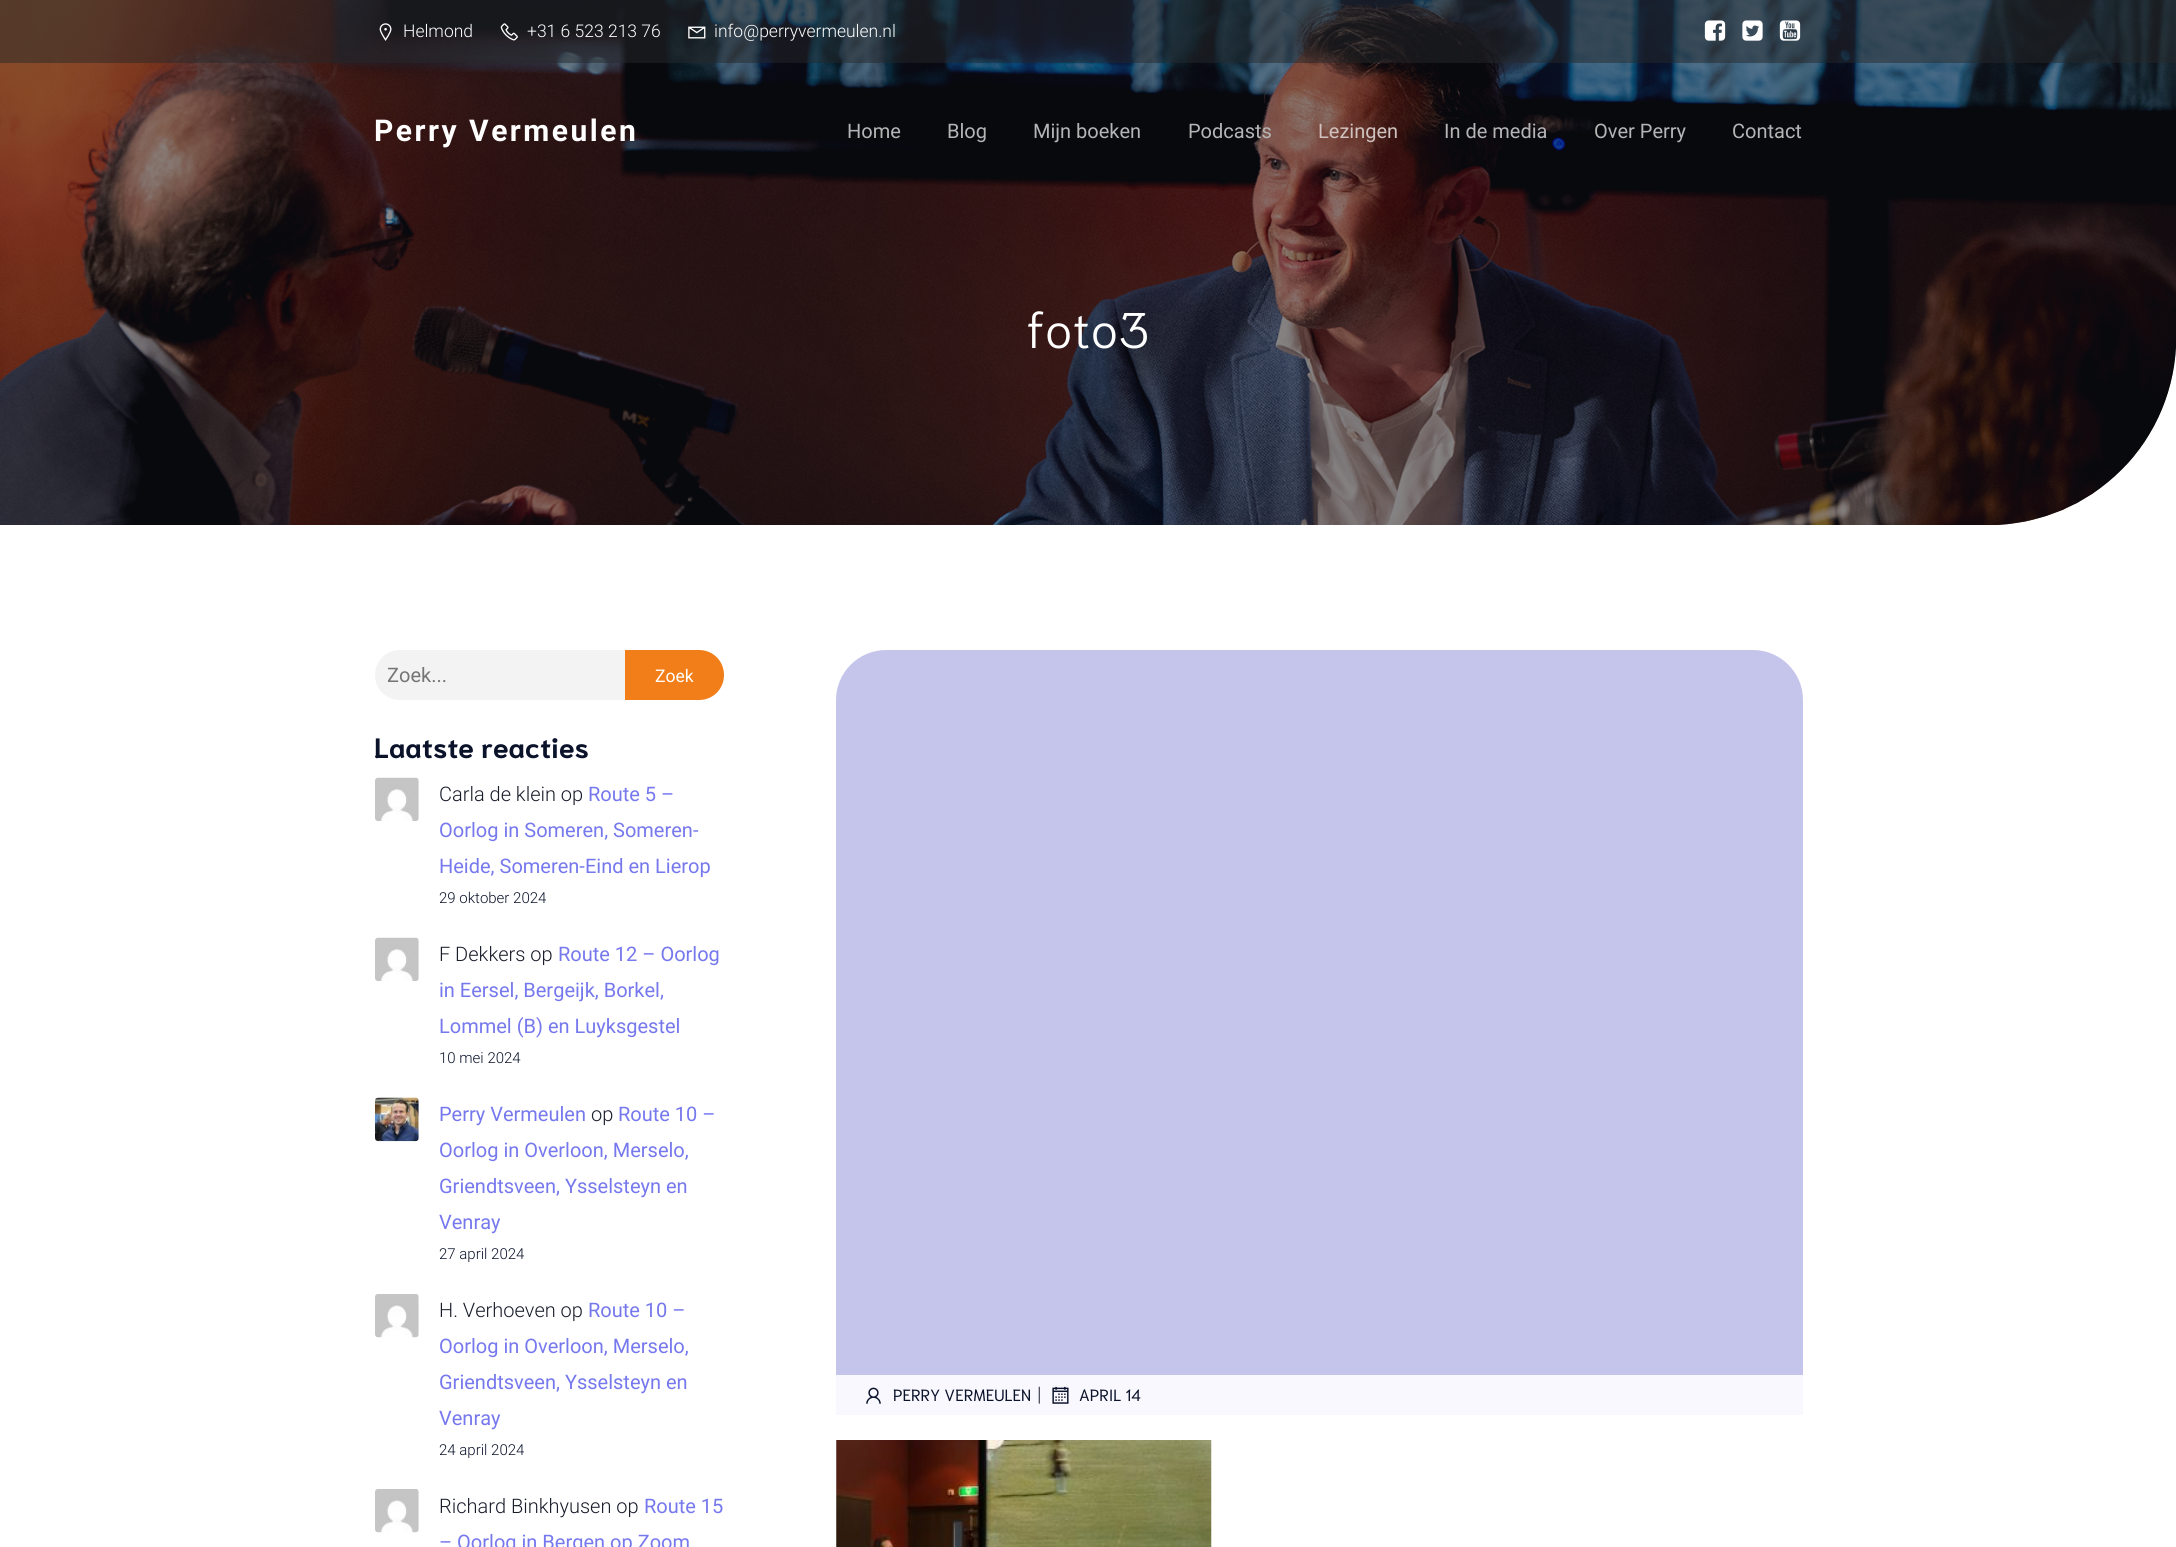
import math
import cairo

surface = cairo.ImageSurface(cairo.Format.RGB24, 2176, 1547)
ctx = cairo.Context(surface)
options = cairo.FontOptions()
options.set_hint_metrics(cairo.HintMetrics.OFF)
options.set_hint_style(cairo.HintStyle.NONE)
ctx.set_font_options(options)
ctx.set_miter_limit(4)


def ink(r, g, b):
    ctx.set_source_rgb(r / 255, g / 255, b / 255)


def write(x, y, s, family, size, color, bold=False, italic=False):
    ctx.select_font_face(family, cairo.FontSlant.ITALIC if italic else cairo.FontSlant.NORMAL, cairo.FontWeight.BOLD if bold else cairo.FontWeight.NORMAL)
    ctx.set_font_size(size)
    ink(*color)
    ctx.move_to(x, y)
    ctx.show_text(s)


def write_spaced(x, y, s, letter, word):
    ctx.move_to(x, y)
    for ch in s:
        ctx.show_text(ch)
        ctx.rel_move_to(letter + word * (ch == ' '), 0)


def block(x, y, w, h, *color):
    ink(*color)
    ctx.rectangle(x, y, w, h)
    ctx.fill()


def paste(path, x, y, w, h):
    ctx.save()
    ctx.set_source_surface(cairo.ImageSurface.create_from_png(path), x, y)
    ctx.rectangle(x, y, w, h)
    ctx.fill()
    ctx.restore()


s1 = dict(family="Roboto Light", size=17.5, color=(255, 255, 255))
s2 = dict(family="Roboto", size=20, color=(181, 181, 182))
s3 = dict(family="Roboto", size=20, color=(207, 194, 191))
s4 = dict(family="Niramit Light", size=50, color=(255, 255, 255))
s5 = dict(family="Roboto", size=20, color=(117, 117, 117))
s6 = dict(family="Roboto", size=17.5, color=(255, 255, 255))
s7 = dict(family="Niramit", size=28, color=(11, 19, 43), bold=True)
s8 = dict(family="Roboto Light", size=20, color=(25, 29, 42))
s9 = dict(family="Roboto", size=20, color=(118, 120, 237))
s10 = dict(family="Roboto Light", size=15, color=(11, 19, 43))
s11 = dict(family="Niramit", size=16.25, color=(11, 19, 43))

ink(255, 255, 255)
ctx.paint()
paste("pic7.png", 0, 0, 2176, 525)
ctx.set_source_rgba(0.067, 0.071, 0.102, 0.5)
ctx.new_path()
ctx.move_to(0, 0)
ctx.line_to(2176, 0)
ctx.line_to(2176, 337)
ctx.curve_to(2176, 441, 2092, 525, 1988, 525)
ctx.line_to(0, 525)
ctx.close_path()
ctx.fill()
ctx.set_source_rgba(0.153, 0.157, 0.165, 0.5)
ctx.rectangle(0, 0, 2176, 63)
ctx.fill()
paste("pic1.png", 379, 23, 13, 18)
write(403, 37, "Helmond", **s1)
paste("pic2.png", 500, 23, 18, 18)
write(527, 37, "+31 6 523 213 76", **s1)
paste("pic3.png", 688, 26, 18, 13)
write(714, 37, "info@perryvermeulen.nl", **s1)
paste("pic4.png", 1704, 20, 22, 21)
paste("pic5.png", 1742, 20, 21, 21)
paste("pic6.png", 1779, 20, 22, 21)
ctx.select_font_face("Roboto", cairo.FontSlant.NORMAL, cairo.FontWeight.BOLD)
ctx.set_font_size(30)
write_spaced(374, 141, "Perry Vermeulen", 2.5, 0)
write(847, 138, "Home", **s2)
write(947, 138, "Blog", **s2)
write(1033, 138, "Mijn boeken", **s2)
write(1188, 138, "Podcasts", **s2)
write(1318, 138, "Lezingen", **s3)
write(1444, 138, "In de media", **s2)
write(1594, 138, "Over Perry", **s2)
write(1732, 138, "Contact", **s2)
write(1026, 348, "foto3", **s4)
ink(243, 243, 244)
ctx.new_path()
ctx.move_to(400, 650)
ctx.line_to(625, 650)
ctx.line_to(625, 700)
ctx.line_to(400, 700)
ctx.curve_to(386, 700, 375, 689, 375, 675)
ctx.curve_to(375, 661, 386, 650, 400, 650)
ctx.close_path()
ctx.fill()
ctx.save()
ctx.rectangle(388, 664, 225, 24)
ctx.clip()
write(387, 682, "Zoek...", **s5)
ctx.restore()
ink(241, 126, 24)
ctx.new_path()
ctx.move_to(625, 650)
ctx.line_to(699, 650)
ctx.curve_to(713, 650, 724, 661, 724, 675)
ctx.curve_to(724, 689, 713, 700, 699, 700)
ctx.line_to(625, 700)
ctx.close_path()
ctx.fill()
write(655, 682, "Zoek", **s6)
write(374, 758, "Laatste reacties", **s7)
paste("pic8.png", 375, 777, 44, 44)
write(439, 801, "Carla de klein op", **s8)
write(588, 801, "Route 5 –", **s9)
write(439, 837, "Oorlog in Someren, Someren-", **s9)
write(439, 873, "Heide, Someren-Eind en Lierop", **s9)
write(439, 903, "29 oktober 2024", **s10)
paste("pic8.png", 375, 937, 44, 44)
write(439, 961, "F Dekkers op", **s8)
write(558, 961, "Route 12 – Oorlog", **s9)
write(439, 997, "in Eersel, Bergeijk, Borkel,", **s9)
write(439, 1033, "Lommel (B) en Luyksgestel", **s9)
write(439, 1063, "10 mei 2024", **s10)
paste("pic9.png", 375, 1097, 44, 45)
write(439, 1121, "Perry Vermeulen", **s9)
write(591, 1121, "op", **s8)
write(618, 1121, "Route 10 –", **s9)
write(439, 1157, "Oorlog in Overloon, Merselo,", **s9)
write(439, 1193, "Griendtsveen, Ysselsteyn en", **s9)
write(439, 1229, "Venray", **s9)
write(439, 1259, "27 april 2024", **s10)
paste("pic10.png", 375, 1294, 44, 44)
write(439, 1317, "H. Verhoeven op", **s8)
write(588, 1317, "Route 10 –", **s9)
write(439, 1353, "Oorlog in Overloon, Merselo,", **s9)
write(439, 1389, "Griendtsveen, Ysselsteyn en", **s9)
write(439, 1425, "Venray", **s9)
write(439, 1455, "24 april 2024", **s10)
paste("pic10.png", 375, 1489, 44, 44)
write(439, 1513, "Richard Binkhyusen op", **s8)
write(644, 1513, "Route 15", **s9)
write(439, 1549, "– Oorlog in Bergen op Zoom", **s9)
ink(197, 197, 236)
ctx.new_path()
ctx.move_to(886, 650)
ctx.line_to(1753, 650)
ctx.curve_to(1780.5, 650, 1803, 672.5, 1803, 700)
ctx.line_to(1803, 1375)
ctx.line_to(836, 1375)
ctx.line_to(836, 700)
ctx.curve_to(836, 672.5, 858.5, 650, 886, 650)
ctx.close_path()
ctx.fill()
block(836, 1375, 967, 40, 248, 248, 254)
paste("pic11.png", 866, 1387, 15, 17)
write(893, 1401, "PERRY VERMEULEN", **s11)
write(1037, 1401, "|", **s8)
paste("pic12.png", 1052, 1386, 17, 18)
write(1079, 1401, "APRIL 14", **s11)
paste("pic13.png", 836, 1440, 376, 107)
surface.write_to_png("screenshot.png")
